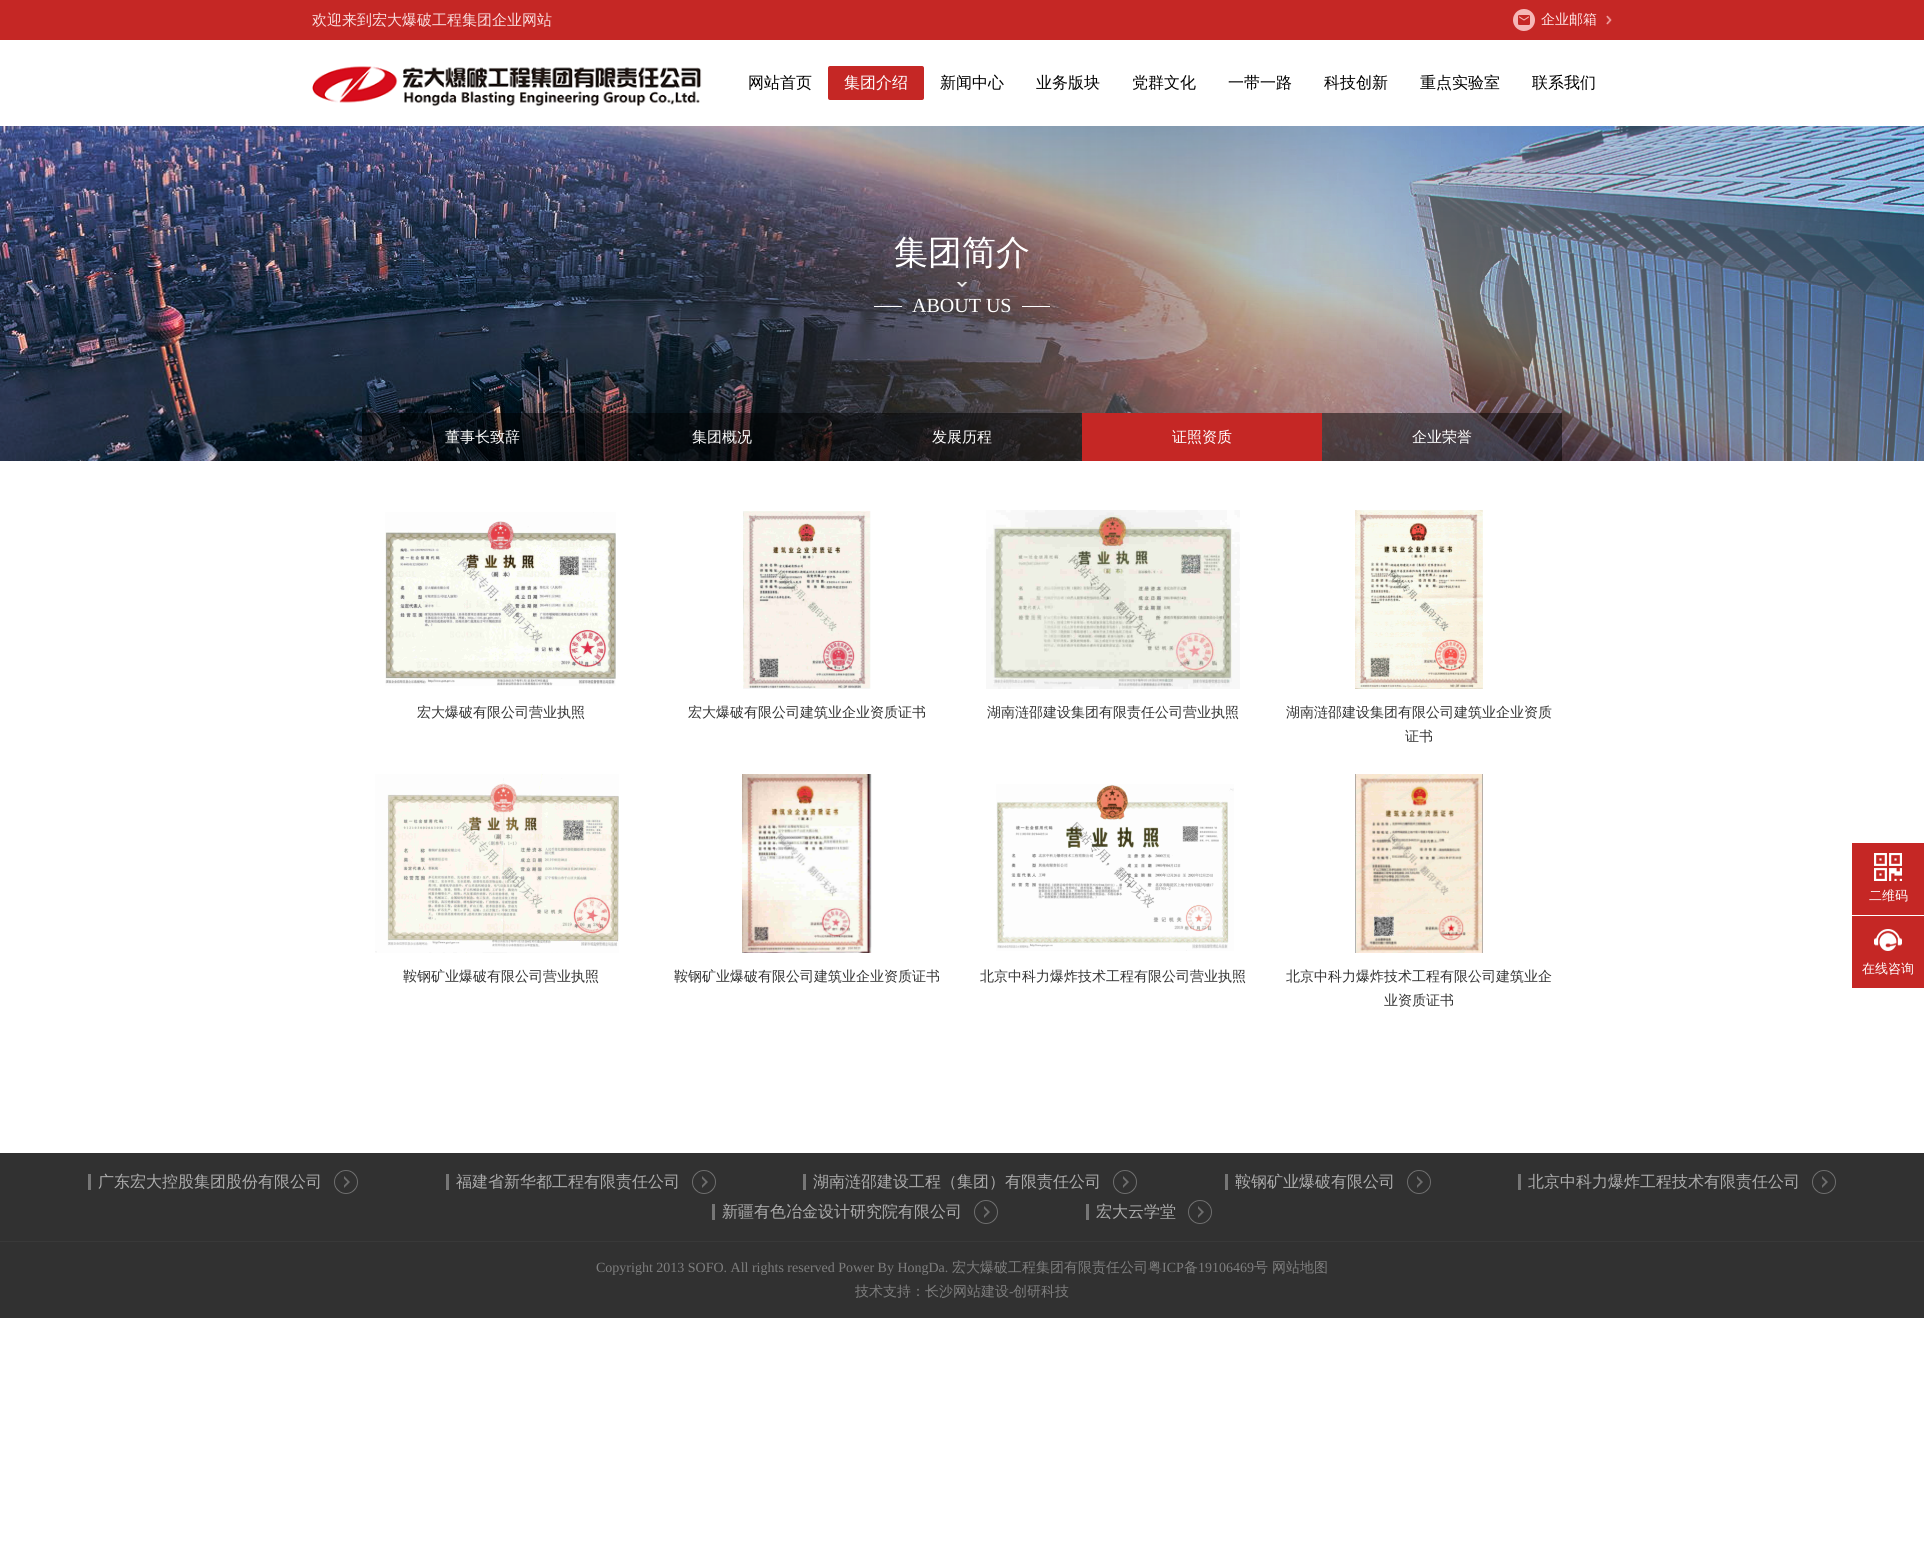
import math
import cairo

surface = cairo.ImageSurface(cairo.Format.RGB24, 1924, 1560)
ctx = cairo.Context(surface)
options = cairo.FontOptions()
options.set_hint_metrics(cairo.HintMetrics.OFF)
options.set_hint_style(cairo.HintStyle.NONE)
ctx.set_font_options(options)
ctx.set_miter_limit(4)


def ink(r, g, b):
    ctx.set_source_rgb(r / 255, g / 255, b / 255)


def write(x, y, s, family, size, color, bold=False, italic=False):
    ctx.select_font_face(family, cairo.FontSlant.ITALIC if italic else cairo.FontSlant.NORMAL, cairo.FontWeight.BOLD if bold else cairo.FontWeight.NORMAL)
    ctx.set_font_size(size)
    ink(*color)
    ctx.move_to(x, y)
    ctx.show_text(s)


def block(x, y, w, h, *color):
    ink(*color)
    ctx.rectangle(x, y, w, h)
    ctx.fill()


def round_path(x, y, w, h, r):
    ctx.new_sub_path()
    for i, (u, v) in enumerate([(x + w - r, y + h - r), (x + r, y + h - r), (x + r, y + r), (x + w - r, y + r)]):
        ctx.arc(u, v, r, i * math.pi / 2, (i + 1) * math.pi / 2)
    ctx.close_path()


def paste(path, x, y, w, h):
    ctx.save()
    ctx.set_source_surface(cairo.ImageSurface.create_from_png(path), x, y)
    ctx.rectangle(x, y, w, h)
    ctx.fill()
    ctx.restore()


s1 = dict(family="WenQuanYi Zen Hei Medium", size=15, color=(249, 220, 220))
s2 = dict(family="WenQuanYi Zen Hei Medium", size=14, color=(255, 230, 230))
s3 = dict(family="WenQuanYi Zen Hei Medium", size=16, color=(0, 0, 0))
s4 = dict(family="WenQuanYi Zen Hei Medium", size=16, color=(255, 255, 255))
s5 = dict(family="WenQuanYi Zen Hei Medium", size=34, color=(255, 255, 255))
s6 = dict(family="Liberation Serif", size=20, color=(255, 255, 255))
s7 = dict(family="WenQuanYi Zen Hei Medium", size=15, color=(255, 255, 255))
s8 = dict(family="WenQuanYi Zen Hei Medium", size=14, color=(51, 51, 51))
s9 = dict(family="WenQuanYi Zen Hei Medium", size=13, color=(255, 255, 255))
s10 = dict(family="WenQuanYi Zen Hei Medium", size=16, color=(172, 172, 172))
s11 = dict(family="Liberation Serif", size=14, color=(125, 125, 125))
s12 = dict(family="WenQuanYi Zen Hei Medium", size=14, color=(125, 125, 125))

ink(255, 255, 255)
ctx.paint()
block(0, 0, 1924, 40, 197, 39, 37)
write(312, 25, "欢迎来到宏大爆破工程集团企业网站", **s1)
paste("pic1.png", 1606, 15, 6, 10)
paste("pic2.png", 1513, 9, 22, 22)
write(1541, 24, "企业邮箱", **s2)
paste("pic3.png", 312, 66, 390, 41)
write(748, 88, "网站首页", **s3)
ink(197, 39, 37)
round_path(828, 66, 96, 34, 2)
ctx.fill()
write(844, 88, "集团介绍", **s4)
write(940, 88, "新闻中心", **s3)
write(1036, 88, "业务版块", **s3)
write(1132, 88, "党群文化", **s3)
write(1228, 88, "一带一路", **s3)
write(1324, 88, "科技创新", **s3)
write(1420, 88, "重点实验室", **s3)
write(1532, 88, "联系我们", **s3)
paste("pic4.png", 0, 126, 1924, 335)
write(894, 264, "集团简介", **s5)
paste("pic5.png", 956, 282, 12, 6)
block(874, 306, 28, 1, 255, 255, 255)
write(912, 312, "ABOUT US", **s6)
block(1022, 306, 28, 1, 255, 255, 255)
ctx.set_source_rgba(0, 0, 0, 0.5)
ctx.rectangle(362, 413, 1200, 48)
ctx.fill()
write(445, 442, "董事长致辞", **s7)
write(692, 442, "集团概况", **s7)
write(932, 442, "发展历程", **s7)
block(1082, 413, 240, 48, 197, 39, 37)
write(1172, 442, "证照资质", **s7)
write(1412, 442, "企业荣誉", **s7)
paste("pic6.png", 385, 512, 231, 174)
write(417, 717, "宏大爆破有限公司营业执照", **s8)
paste("pic7.png", 743, 511, 128, 178)
write(688, 717, "宏大爆破有限公司建筑业企业资质证书", **s8)
paste("pic8.png", 986, 510, 254, 179)
write(987, 717, "湖南涟邵建设集团有限责任公司营业执照", **s8)
paste("pic9.png", 1355, 510, 128, 179)
write(1286, 717, "湖南涟邵建设集团有限公司建筑业企业资质", **s8)
write(1405, 741, "证书", **s8)
paste("pic10.png", 375, 774, 244, 179)
write(403, 981, "鞍钢矿业爆破有限公司营业执照", **s8)
paste("pic11.png", 742, 774, 130, 179)
write(674, 981, "鞍钢矿业爆破有限公司建筑业企业资质证书", **s8)
paste("pic12.png", 996, 784, 238, 167)
write(980, 981, "北京中科力爆炸技术工程有限公司营业执照", **s8)
paste("pic13.png", 1355, 774, 128, 179)
write(1286, 981, "北京中科力爆炸技术工程有限公司建筑业企", **s8)
write(1384, 1005, "业资质证书", **s8)
block(1852, 843, 72, 72, 197, 39, 37)
paste("pic14.png", 1874, 853, 28, 28)
write(1869, 900, "二维码", **s9)
block(1852, 916, 72, 72, 197, 39, 37)
paste("pic15.png", 1874, 929, 28, 22)
write(1862, 973, "在线咨询", **s9)
block(0, 1153, 1924, 165, 49, 49, 49)
block(88, 1174, 3, 16, 118, 118, 118)
write(98, 1187, "广东宏大控股集团股份有限公司", **s10)
paste("pic16.png", 334, 1170, 24, 24)
block(446, 1174, 3, 16, 118, 118, 118)
write(456, 1187, "福建省新华都工程有限责任公司", **s10)
paste("pic16.png", 692, 1170, 24, 24)
block(803, 1174, 3, 16, 118, 118, 118)
write(813, 1187, "湖南涟邵建设工程（集团）有限责任公司", **s10)
paste("pic16.png", 1113, 1170, 24, 24)
block(1225, 1174, 3, 16, 118, 118, 118)
write(1235, 1187, "鞍钢矿业爆破有限公司", **s10)
paste("pic16.png", 1407, 1170, 24, 24)
block(1518, 1174, 3, 16, 118, 118, 118)
write(1528, 1187, "北京中科力爆炸工程技术有限责任公司", **s10)
paste("pic16.png", 1812, 1170, 24, 24)
block(712, 1204, 3, 16, 118, 118, 118)
write(722, 1217, "新疆有色冶金设计研究院有限公司", **s10)
paste("pic16.png", 974, 1200, 24, 24)
block(1086, 1204, 3, 16, 118, 118, 118)
write(1096, 1217, "宏大云学堂", **s10)
paste("pic16.png", 1188, 1200, 24, 24)
block(0, 1241, 1924, 1, 57, 57, 57)
write(596, 1272, "Copyright 2013 SOFO. All rights reserved Power By HongDa.", **s11)
write(952, 1272, "宏大爆破工程集团有限责任公司粤", **s12)
write(1162, 1272, "ICP", **s11)
write(1184, 1272, "备", **s12)
write(1198, 1272, "19106469", **s11)
write(1254, 1272, "号", **s12)
write(1272, 1272, "网站地图", **s12)
write(855, 1296, "技术支持：长沙网站建设", **s12)
write(1009, 1296, "-", **s11)
write(1013, 1296, "创研科技", **s12)
surface.write_to_png("screenshot.png")
